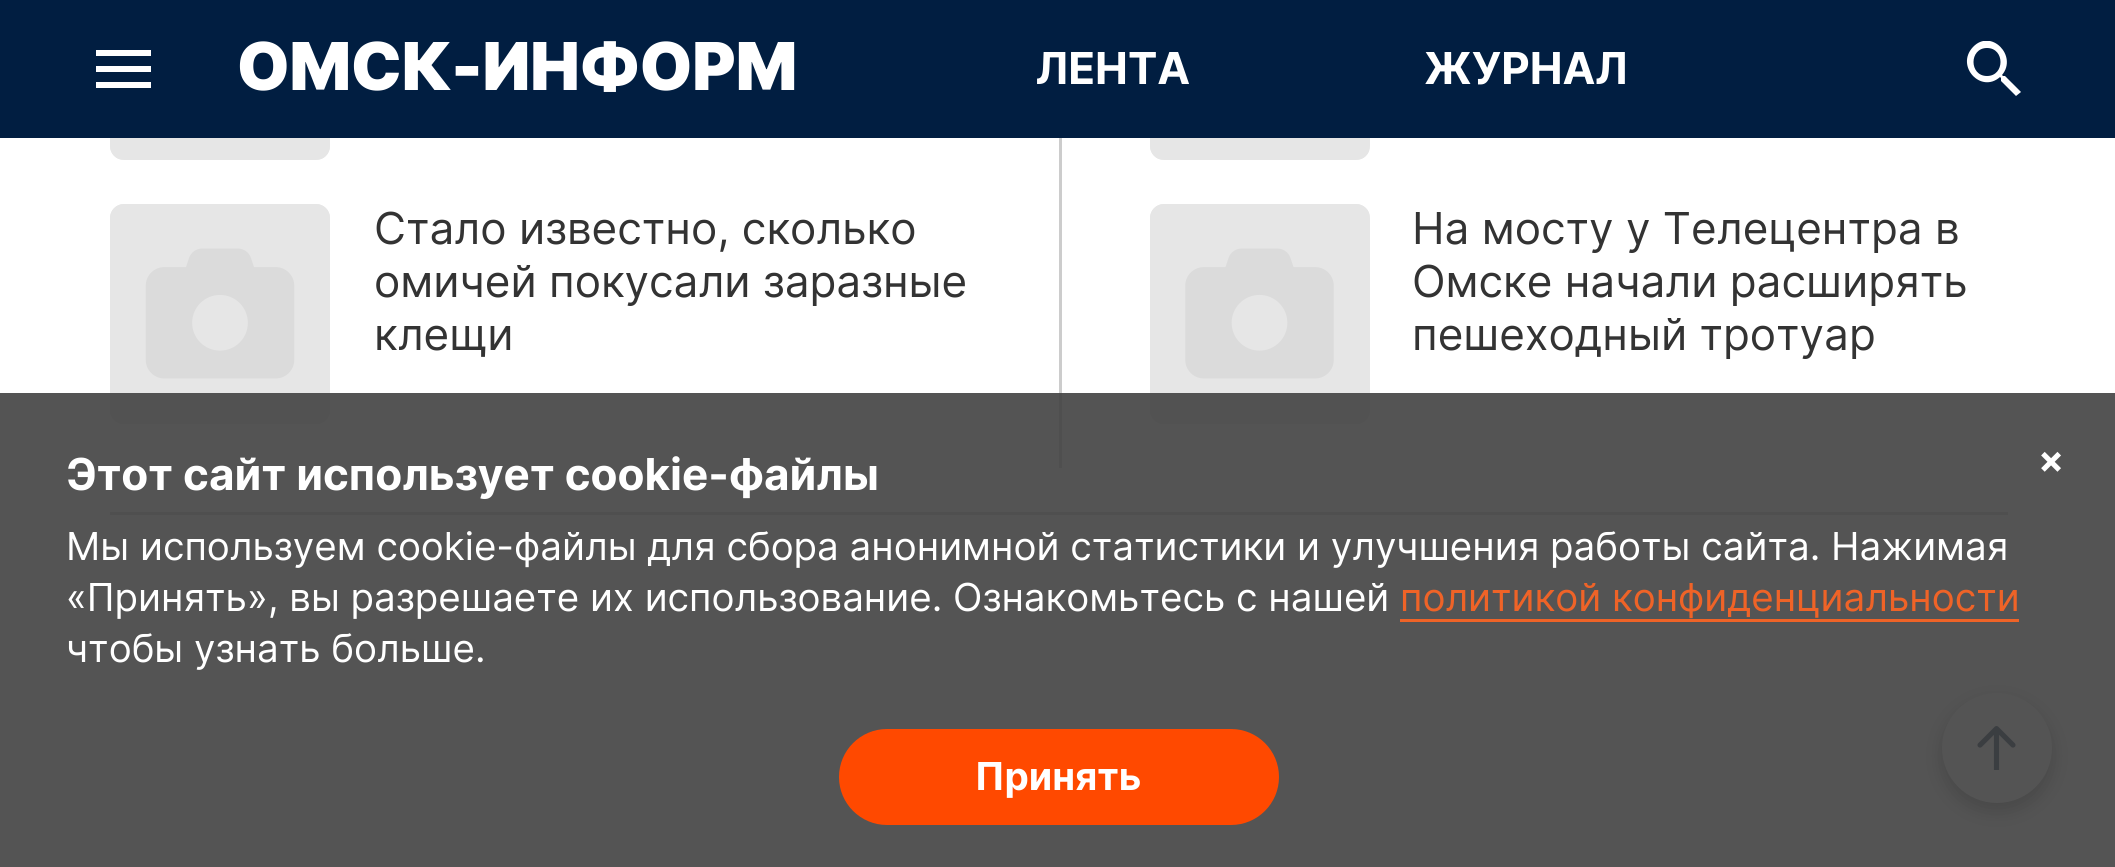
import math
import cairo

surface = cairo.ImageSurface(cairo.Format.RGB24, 2115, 867)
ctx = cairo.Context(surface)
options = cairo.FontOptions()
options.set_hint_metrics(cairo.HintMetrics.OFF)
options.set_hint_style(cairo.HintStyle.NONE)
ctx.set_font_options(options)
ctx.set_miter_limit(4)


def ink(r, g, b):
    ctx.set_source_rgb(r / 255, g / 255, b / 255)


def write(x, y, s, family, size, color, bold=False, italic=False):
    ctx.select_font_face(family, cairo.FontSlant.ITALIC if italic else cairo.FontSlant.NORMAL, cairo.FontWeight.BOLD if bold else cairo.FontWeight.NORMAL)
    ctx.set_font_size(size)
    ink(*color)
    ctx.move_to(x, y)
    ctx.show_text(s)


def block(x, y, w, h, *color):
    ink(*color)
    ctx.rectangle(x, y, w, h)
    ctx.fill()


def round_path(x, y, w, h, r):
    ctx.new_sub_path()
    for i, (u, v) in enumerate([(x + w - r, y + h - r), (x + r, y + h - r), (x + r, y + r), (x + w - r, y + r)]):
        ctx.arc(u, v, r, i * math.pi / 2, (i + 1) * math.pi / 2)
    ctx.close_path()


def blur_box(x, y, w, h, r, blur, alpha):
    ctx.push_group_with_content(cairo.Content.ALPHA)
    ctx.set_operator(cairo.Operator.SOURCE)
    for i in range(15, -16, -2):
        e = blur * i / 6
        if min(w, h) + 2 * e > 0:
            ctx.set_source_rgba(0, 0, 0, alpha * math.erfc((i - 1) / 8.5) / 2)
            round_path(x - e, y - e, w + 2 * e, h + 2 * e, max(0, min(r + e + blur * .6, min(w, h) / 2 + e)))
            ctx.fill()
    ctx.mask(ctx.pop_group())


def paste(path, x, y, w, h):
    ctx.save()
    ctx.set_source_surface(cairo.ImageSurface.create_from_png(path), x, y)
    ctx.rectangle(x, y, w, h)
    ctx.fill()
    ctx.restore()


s1 = dict(family="Inter Black", size=66, color=(255, 255, 255))
s2 = dict(family="Inter", size=44, color=(255, 255, 255), bold=True)
s3 = dict(family="Inter", size=44, color=(51, 51, 51))
s4 = dict(family="Inter", size=38.5, color=(255, 255, 255))
s5 = dict(family="Inter", size=38.5, color=(239, 99, 39))
s6 = dict(family="Inter", size=38.5, color=(255, 255, 255), bold=True)

ink(255, 255, 255)
ctx.paint()
block(0, 0, 2115, 138, 1, 30, 65)
ink(255, 255, 255)
ctx.new_path()
ctx.move_to(96, 50)
ctx.line_to(151, 50)
ctx.line_to(151, 56)
ctx.line_to(96, 56)
ctx.close_path()
ctx.move_to(96, 66)
ctx.line_to(151, 66)
ctx.line_to(151, 72)
ctx.line_to(96, 72)
ctx.close_path()
ctx.move_to(96, 82)
ctx.line_to(151, 82)
ctx.line_to(151, 88)
ctx.line_to(96, 88)
ctx.close_path()
ctx.fill()
write(237, 90, "ОМСК-ИНФОРМ", **s1)
write(1036, 84, "ЛЕНТА", **s2)
write(1424, 84, "ЖУРНАЛ", **s2)
ctx.save()
ctx.rectangle(1966, 41, 55, 55)
ctx.clip()
ctx.new_path()
ctx.move_to(2005, 76)
ctx.line_to(2003, 76)
ctx.line_to(2002, 75)
ctx.curve_to(2018, 56, 1991, 28, 1973, 47)
ctx.curve_to(1955, 66, 1981, 94, 2000, 77)
ctx.line_to(2001, 78)
ctx.line_to(2001, 81)
ctx.line_to(2016, 96)
ctx.line_to(2021, 92)
ctx.close_path()
ctx.move_to(1987, 76)
ctx.curve_to(1969, 76, 1969, 48, 1987, 48)
ctx.curve_to(2005, 48, 2005, 76, 1987, 76)
ctx.fill()
ctx.restore()
paste("pic1.png", 110, 138, 220, 22)
paste("pic2.png", 110, 204, 220, 220)
write(374, 244, "Стало известно, сколько", **s3)
write(374, 297, "омичей покусали заразные", **s3)
write(374, 350, "клещи", **s3)
block(1059, 138, 3, 330, 204, 204, 204)
paste("pic3.png", 1150, 138, 220, 22)
paste("pic4.png", 1150, 204, 220, 220)
write(1412, 244, "На мосту у Телецентра в", **s3)
write(1412, 297, "Омске начали расширять", **s3)
write(1412, 350, "пешеходный тротуар", **s3)
block(110, 512, 1898, 3, 204, 204, 204)
ink(0, 0, 0)
blur_box(1942, 701, 110, 110, 55, 9, 0.5)
ink(255, 255, 255)
ctx.arc(1997, 748, 55, 0, 2 * math.pi)
ctx.fill()
paste("pic5.png", 1977, 726, 39, 44)
ctx.set_source_rgba(0.259, 0.259, 0.259, 0.9)
ctx.rectangle(0, 393, 2115, 474)
ctx.fill()
write(66, 490, "Этот сайт использует cookie-файлы", **s2)
write(66, 560, "Мы используем cookie-файлы для сбора анонимной статистики и улучшения работы сайта. Нажимая", **s4)
write(66, 611, "«Принять», вы разрешаете их использование. Ознакомьтесь с нашей", **s4)
write(1400, 611, "политикой конфиденциальности", **s5)
block(1400, 619, 619, 3, 239, 99, 39)
write(66, 662, "чтобы узнать больше.", **s4)
ink(255, 73, 0)
round_path(839, 729, 440, 96, 48)
ctx.fill()
write(975, 790, "Принять", **s6)
write(2038, 473, "×", **s6)
surface.write_to_png("screenshot.png")
